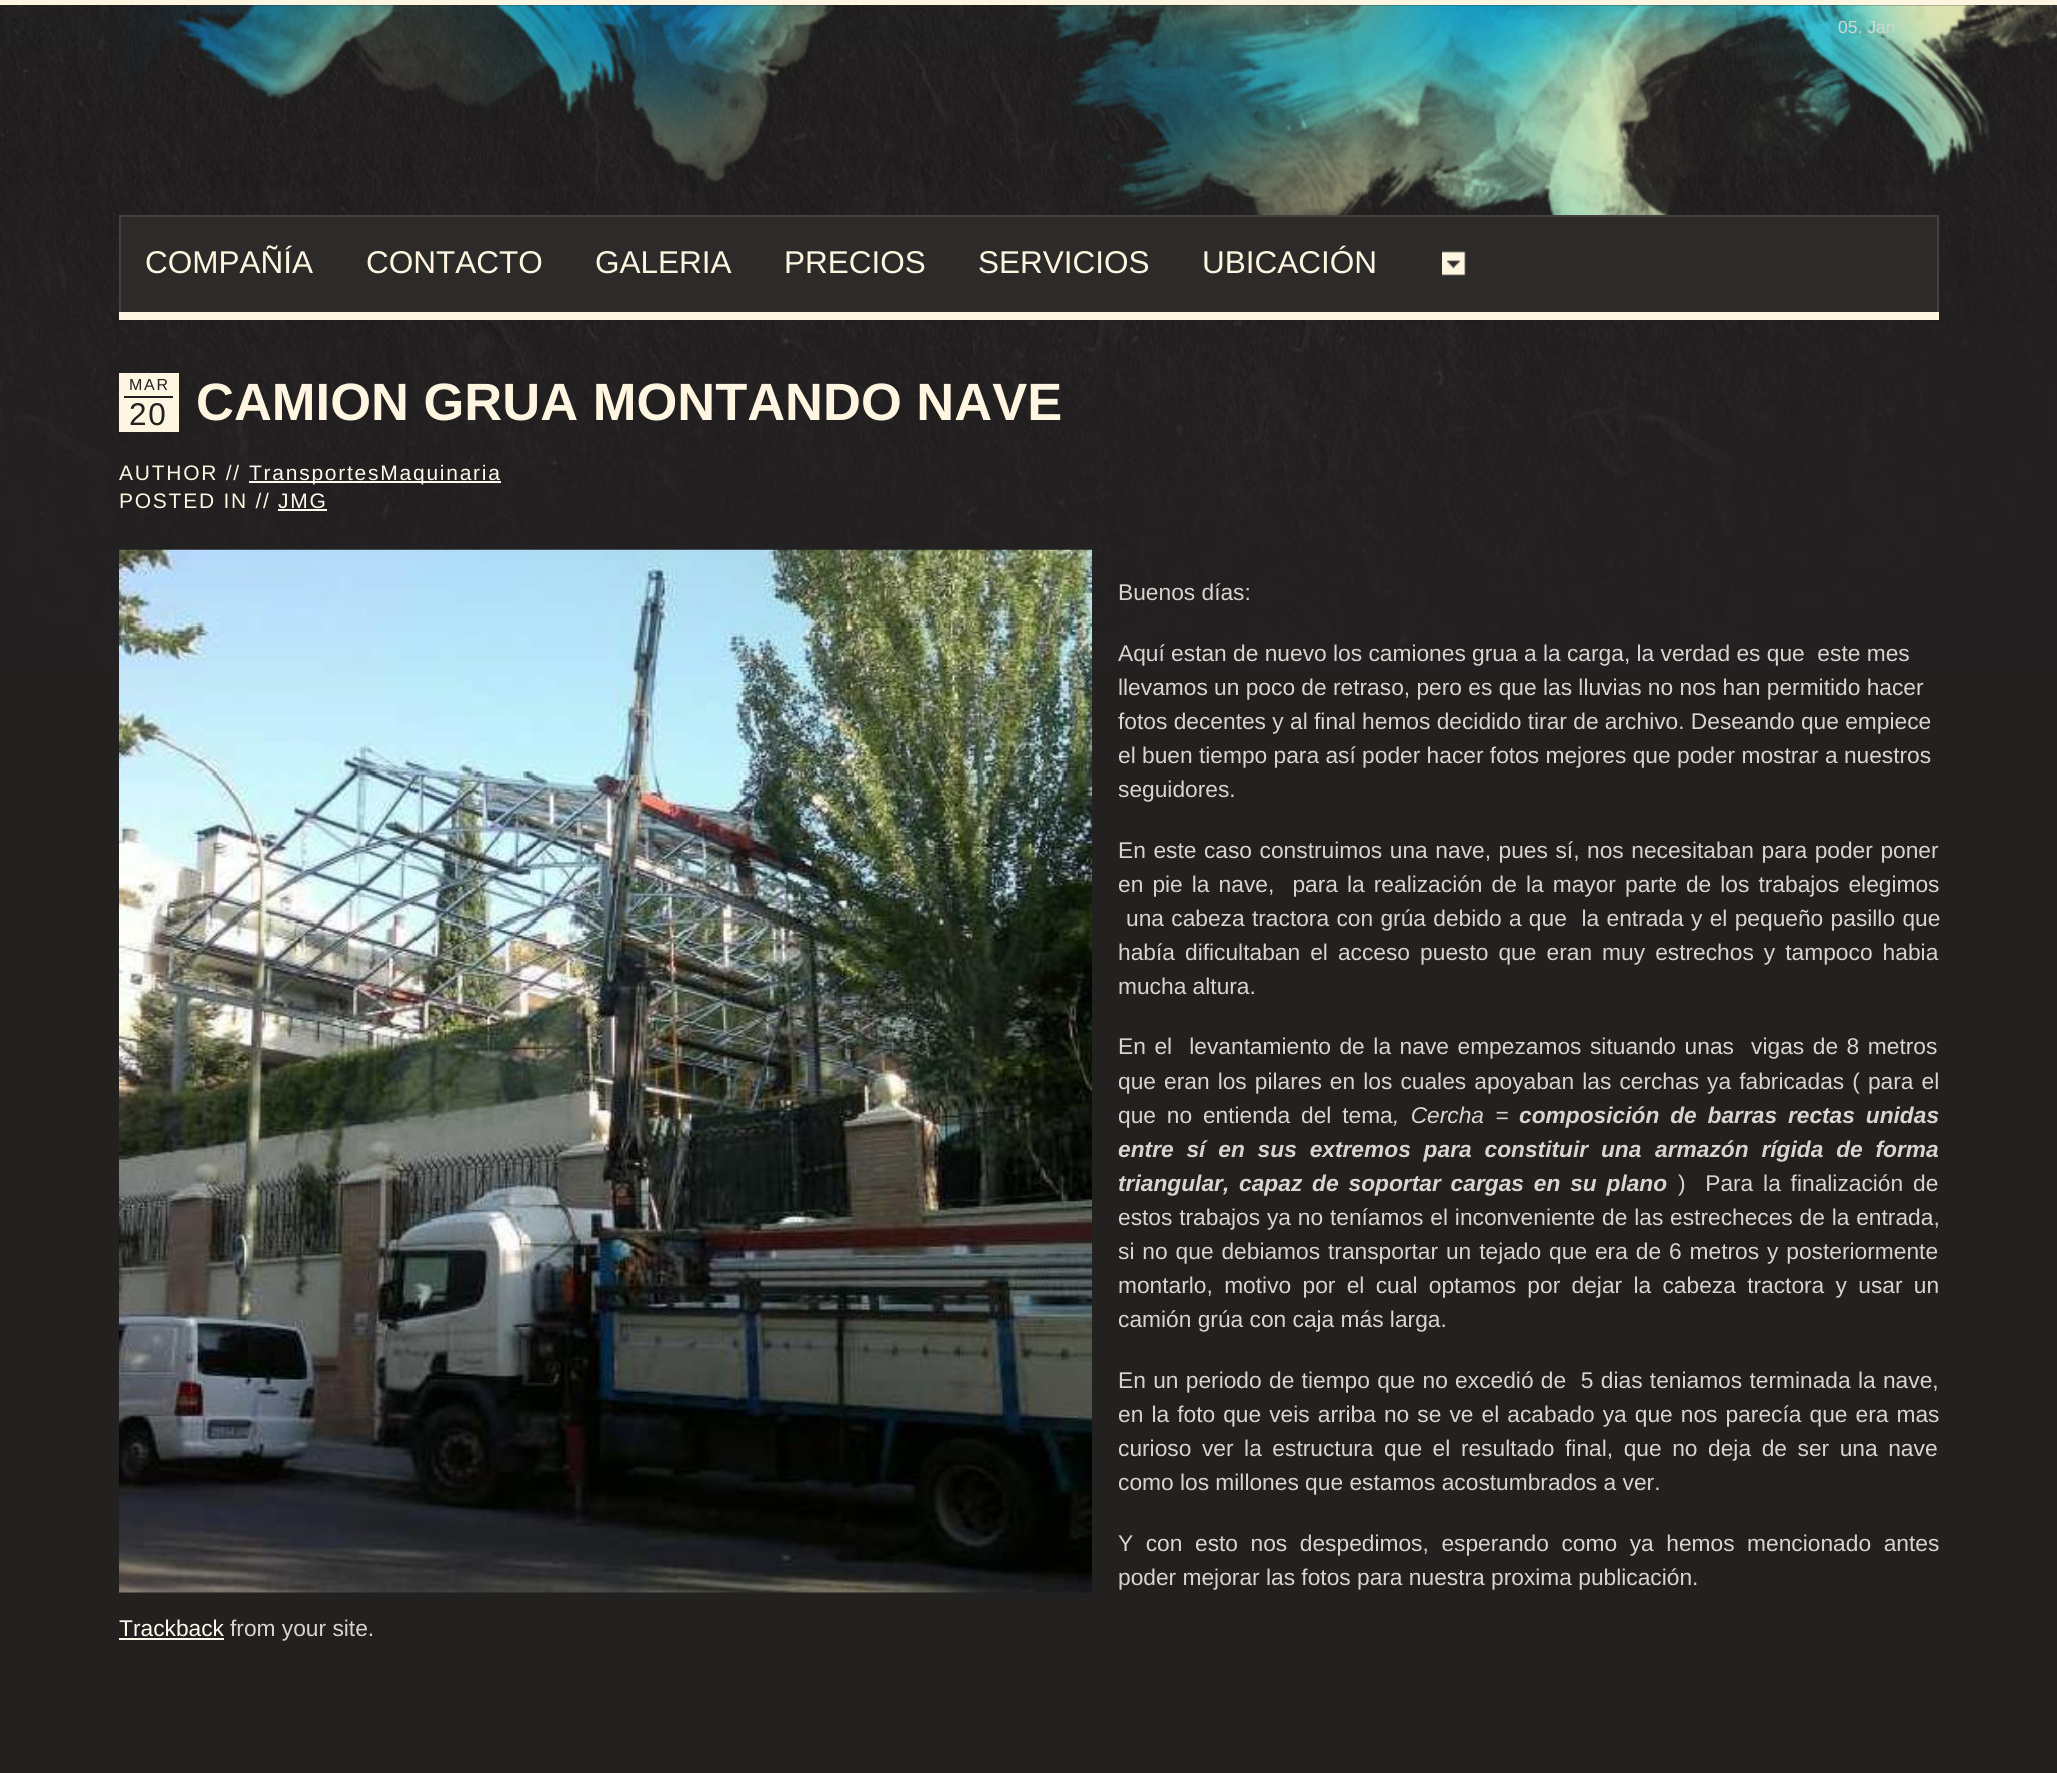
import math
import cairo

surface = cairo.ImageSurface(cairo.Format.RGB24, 2057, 1773)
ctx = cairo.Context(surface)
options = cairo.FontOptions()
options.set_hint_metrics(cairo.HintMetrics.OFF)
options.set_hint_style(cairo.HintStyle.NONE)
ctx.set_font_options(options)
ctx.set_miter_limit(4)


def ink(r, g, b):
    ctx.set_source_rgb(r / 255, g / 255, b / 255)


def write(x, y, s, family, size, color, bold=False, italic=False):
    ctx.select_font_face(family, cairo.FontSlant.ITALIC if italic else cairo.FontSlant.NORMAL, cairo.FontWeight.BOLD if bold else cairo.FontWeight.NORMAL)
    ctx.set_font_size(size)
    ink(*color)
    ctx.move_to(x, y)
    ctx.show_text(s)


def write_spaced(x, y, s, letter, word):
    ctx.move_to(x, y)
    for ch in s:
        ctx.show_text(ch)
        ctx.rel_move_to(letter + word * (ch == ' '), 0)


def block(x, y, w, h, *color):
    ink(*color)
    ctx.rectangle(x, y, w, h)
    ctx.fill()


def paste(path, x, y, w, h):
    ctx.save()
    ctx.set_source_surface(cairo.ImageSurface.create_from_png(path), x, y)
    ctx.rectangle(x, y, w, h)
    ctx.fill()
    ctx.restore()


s1 = dict(family="Liberation Sans", size=17.5, color=(217, 213, 206))
s2 = dict(family="Liberation Sans", size=31.5, color=(254, 246, 225))
s3 = dict(family="Liberation Sans", size=52.5, color=(254, 246, 225), bold=True)
s4 = dict(family="Liberation Sans", size=22.75, color=(217, 213, 206))
s5 = dict(family="Liberation Sans", size=22.75, color=(254, 250, 237))

ink(34, 33, 32)
ctx.paint()
paste("pic1.png", 0, 5, 2057, 665)
block(0, 0, 2057, 5, 254, 246, 225)
write(1838, 33, "05. Jan", **s1)
block(119, 312, 1820, 8, 254, 246, 225)
block(121, 217, 1816, 95, 44, 43, 42)
block(119, 215, 1820, 2, 67, 65, 61)
block(1937, 215, 2, 97, 67, 65, 61)
block(119, 215, 2, 97, 67, 65, 61)
write(145, 273, "COMPAÑÍA", **s2)
write(366, 273, "CONTACTO", **s2)
write(595, 273, "GALERIA", **s2)
write(784, 273, "PRECIOS", **s2)
write(978, 273, "SERVICIOS", **s2)
write(1202, 273, "UBICACIÓN", **s2)
paste("pic2.png", 1442, 251, 24, 25)
block(119, 373, 60, 59, 254, 246, 225)
block(124, 396, 49, 2, 34, 33, 32)
ctx.set_font_size(16)
write_spaced(129, 390, "MAR", 1.75, 0)
ctx.set_font_size(31.5)
write_spaced(129, 425, "20", 1.75, 0)
write(196, 420, "CAMION GRUA MONTANDO NAVE", **s3)
ctx.select_font_face("Liberation Sans")
ctx.set_font_size(21)
write_spaced(119, 480, "AUTHOR //", 1.75, 0)
block(249, 481, 252, 2, 254, 250, 237)
write_spaced(249, 480, "TransportesMaquinaria", 1.75, 0)
ink(254, 246, 225)
write_spaced(119, 508, "POSTED IN //", 1.75, 0)
ink(254, 250, 237)
write_spaced(278, 508, "JMG", 1.75, 0)
block(278, 509, 49, 2, 254, 250, 237)
paste("pic3.png", 119, 549, 973, 1044)
write(1118, 600, "Buenos días:", **s4)
write(1118, 661, "Aquí estan de nuevo los camiones grua a la carga, la verdad es que  este mes", **s4)
write(1118, 695, "llevamos un poco de retraso, pero es que las lluvias no nos han permitido hacer", **s4)
write(1118, 729, "fotos decentes y al final hemos decidido tirar de archivo. Deseando que empiece", **s4)
write(1118, 763, "el buen tiempo para así poder hacer fotos mejores que poder mostrar a nuestros", **s4)
write(1118, 797, "seguidores.", **s4)
write_spaced(1118, 858, "En este caso construimos una nave, pues sí, nos necesitaban para poder poner", 0, 1.25)
write_spaced(1118, 892, "en pie la nave,  para la realización de la mayor parte de los trabajos elegimos", 0, 2.75)
write_spaced(1126, 926, "una cabeza tractora con grúa debido a que  la entrada y el pequeño pasillo que", 0, 1)
write_spaced(1118, 960, "había dificultaban el acceso puesto que eran muy estrechos y tampoco habia", 0, 3.75)
write(1118, 994, "mucha altura.", **s4)
write_spaced(1118, 1054, "En el  levantamiento de la nave empezamos situando unas  vigas de 8 metros", 0, 2.25)
write_spaced(1118, 1089, "que eran los pilares en los cuales apoyaban las cerchas ya fabricadas ( para el", 0, 1.75)
write_spaced(1118, 1123, "que no entienda del tema", 0, 4.5)
ctx.select_font_face("Liberation Sans", cairo.FontSlant.ITALIC)
write_spaced(1393, 1123, ", Cercha =", 0, 5)
ctx.select_font_face("Liberation Sans", cairo.FontSlant.ITALIC, cairo.FontWeight.BOLD)
write_spaced(1519, 1123, "composición de barras rectas unidas", 0, 4.5)
write_spaced(1118, 1157, "entre sí en sus extremos para constituir una", 0, 6.5)
write_spaced(1655, 1157, "armazón rígida de forma", 0, 6.5)
write_spaced(1118, 1191, "triangular, capaz de soportar cargas en su plano", 0, 3.5)
ctx.select_font_face("Liberation Sans")
write_spaced(1678, 1191, ")  Para la finalización de", 0, 3.5)
write_spaced(1118, 1225, "estos trabajos ya no teníamos el inconveniente de las estrecheces de la entrada,", 0, 0.5)
write_spaced(1118, 1259, "si no que debiamos transportar un tejado que era de 6 metros y posteriormente", 0, 1.6)
write_spaced(1118, 1293, "montarlo, motivo por el cual optamos por dejar la cabeza tractora y usar un", 0, 5)
write(1118, 1327, "camión grúa con caja más larga.", **s4)
write_spaced(1118, 1388, "En un periodo de tiempo que no excedió de  5 dias teniamos terminada la nave,", 0, 1)
write_spaced(1118, 1422, "en la foto que veis arriba no se ve el acabado ya que nos parecía que era mas", 0, 1.75)
write_spaced(1118, 1456, "curioso ver la estructura que el resultado final, que no deja de ser una nave", 0, 4.25)
write(1118, 1490, "como los millones que estamos acostumbrados a ver.", **s4)
write_spaced(1118, 1551, "Y con esto nos despedimos, esperando como ya hemos mencionado antes", 0, 6.25)
write(1118, 1585, "poder mejorar las fotos para nuestra proxima publicación.", **s4)
write(119, 1636, "Trackback", **s5)
block(119, 1638, 105, 2, 254, 250, 237)
write(230, 1636, "from your site.", **s4)
surface.write_to_png("screenshot.png")
